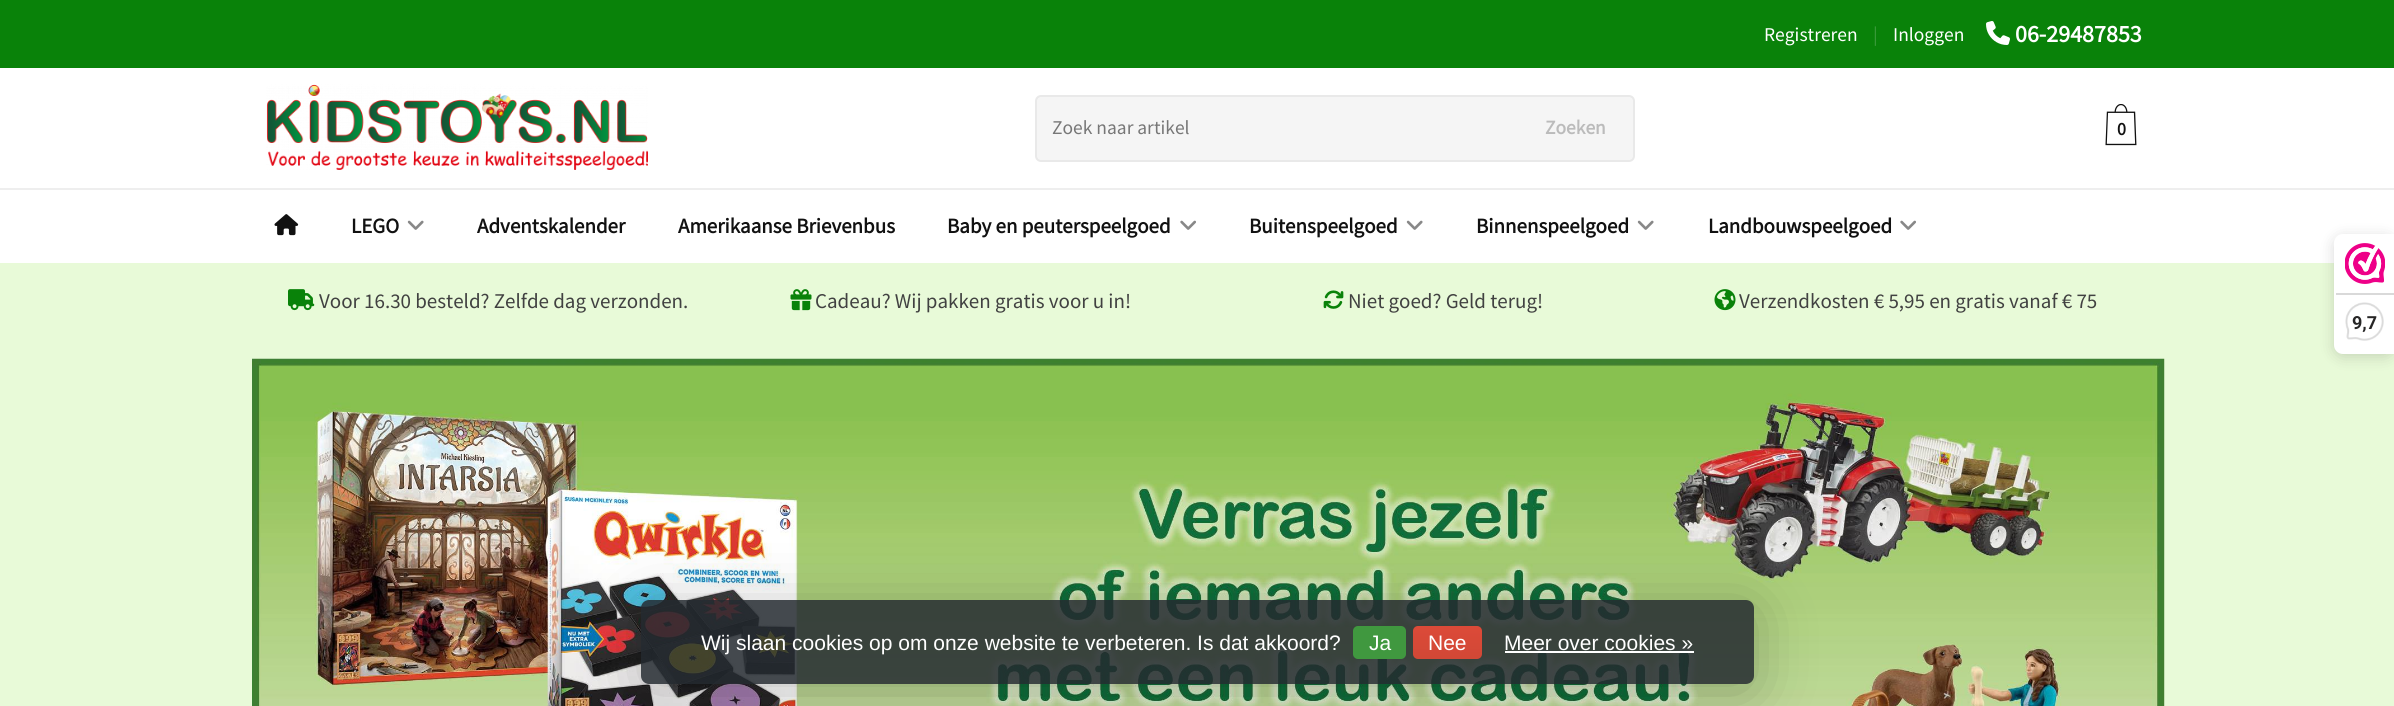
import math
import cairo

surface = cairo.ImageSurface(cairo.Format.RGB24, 2394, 706)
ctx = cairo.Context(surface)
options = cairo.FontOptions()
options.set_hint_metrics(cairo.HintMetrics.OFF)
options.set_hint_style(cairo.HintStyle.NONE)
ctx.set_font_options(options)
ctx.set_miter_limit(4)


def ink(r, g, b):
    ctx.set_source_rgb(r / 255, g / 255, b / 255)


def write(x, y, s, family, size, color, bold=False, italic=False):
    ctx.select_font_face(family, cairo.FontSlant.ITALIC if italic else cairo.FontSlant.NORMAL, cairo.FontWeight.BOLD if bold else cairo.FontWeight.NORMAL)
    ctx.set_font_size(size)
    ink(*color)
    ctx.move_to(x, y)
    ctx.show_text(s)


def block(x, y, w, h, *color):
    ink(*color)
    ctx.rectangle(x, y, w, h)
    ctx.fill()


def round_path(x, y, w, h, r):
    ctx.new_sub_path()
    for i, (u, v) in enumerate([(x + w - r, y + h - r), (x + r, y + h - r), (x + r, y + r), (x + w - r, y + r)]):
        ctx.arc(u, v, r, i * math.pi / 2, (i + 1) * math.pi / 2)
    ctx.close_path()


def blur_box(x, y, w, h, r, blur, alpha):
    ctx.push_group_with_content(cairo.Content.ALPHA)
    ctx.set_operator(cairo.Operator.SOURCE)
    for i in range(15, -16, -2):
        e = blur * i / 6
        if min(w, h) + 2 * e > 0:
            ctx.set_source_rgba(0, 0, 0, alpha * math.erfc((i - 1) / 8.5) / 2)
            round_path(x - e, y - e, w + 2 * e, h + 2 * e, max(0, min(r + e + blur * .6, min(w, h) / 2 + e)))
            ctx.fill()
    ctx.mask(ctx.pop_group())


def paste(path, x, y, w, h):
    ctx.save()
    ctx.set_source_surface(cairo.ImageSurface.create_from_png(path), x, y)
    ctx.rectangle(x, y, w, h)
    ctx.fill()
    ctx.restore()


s1 = dict(family="Source Sans Pro", size=19.5, color=(255, 255, 255))
s2 = dict(family="Source Sans Pro", size=19.5, color=(58, 155, 58))
s3 = dict(family="Source Sans Pro", size=24, color=(255, 255, 255), bold=True)
s4 = dict(family="Source Sans Pro", size=19.5, color=(119, 119, 119))
s5 = dict(family="Source Sans Pro", size=19.5, color=(187, 187, 187), bold=True)
s6 = dict(family="Source Sans Pro", size=18, color=(17, 17, 17), bold=True)
s7 = dict(family="Source Sans Pro", size=21, color=(17, 17, 17), bold=True)
s8 = dict(family="Source Sans Pro", size=21, color=(65, 65, 65))
s9 = dict(family="Roboto", size=18, color=(39, 38, 38), bold=True)
s10 = dict(family="Liberation Sans", size=21, color=(255, 255, 255))

ink(232, 250, 216)
ctx.paint()
block(0, 0, 2394, 68, 9, 130, 9)
write(1764, 41, "Registreren", **s1)
write(1873, 41, "|", **s2)
write(1893, 41, "Inloggen", **s1)
paste("pic1.png", 1986, 21, 24, 24)
write(2015, 42, "06-29487853", **s3)
block(0, 68, 2394, 195, 255, 255, 255)
paste("pic2.png", 266, 84, 382, 86)
ink(245, 245, 245)
round_path(1036, 96, 598, 65, 5)
ctx.fill_preserve()
ink(233, 233, 233)
ctx.stroke()
write(1052, 134, "Zoek naar artikel", **s4)
write(1545, 134, "Zoeken", **s5)
paste("pic3.png", 2105, 104, 32, 42)
write(2117, 135, "0", **s6)
paste("pic4.png", 274, 214, 25, 22)
write(351, 233, "LEGO", **s7)
paste("pic5.png", 407, 220, 17, 10)
write(477, 233, "Adventskalender", **s7)
write(678, 233, "Amerikaanse Brievenbus", **s7)
write(947, 233, "Baby en peuterspeelgoed", **s7)
paste("pic6.png", 1180, 220, 16, 10)
write(1249, 233, "Buitenspeelgoed", **s7)
paste("pic5.png", 1406, 220, 17, 10)
write(1476, 233, "Binnenspeelgoed", **s7)
paste("pic5.png", 1637, 220, 17, 10)
write(1708, 233, "Landbouwspeelgoed", **s7)
paste("pic6.png", 1900, 220, 16, 10)
block(0, 188, 2394, 2, 238, 238, 238)
paste("pic7.png", 288, 289, 27, 22)
write(319, 308, "Voor 16.30 besteld? Zelfde dag verzonden.", **s8)
paste("pic8.png", 790, 289, 22, 22)
write(815, 308, "Cadeau? Wij pakken gratis voor u in!", **s8)
paste("pic9.png", 1323, 290, 21, 19)
write(1348, 308, "Niet goed? Geld terug!", **s8)
paste("pic10.png", 1714, 289, 22, 22)
write(1739, 308, "Verzendkosten € 5,95 en gratis vanaf € 75", **s8)
paste("pic11.png", 252, 358, 1913, 348)
ink(0, 0, 0)
blur_box(2334, 237, 60, 120, 9, 7.5, 0.15)
ink(255, 255, 255)
ctx.new_path()
ctx.move_to(2343, 234)
ctx.line_to(2394, 234)
ctx.line_to(2394, 354)
ctx.line_to(2343, 354)
ctx.curve_to(2338, 354, 2334, 350, 2334, 345)
ctx.line_to(2334, 243)
ctx.curve_to(2334, 238, 2338, 234, 2343, 234)
ctx.close_path()
ctx.fill()
paste("pic12.png", 2345, 243, 40, 41)
block(2336, 293, 58, 2, 217, 217, 217)
paste("pic13.png", 2345, 302, 39, 39)
write(2352, 329, "9,7", **s9)
ctx.save()
ctx.set_fill_rule(cairo.FillRule.EVEN_ODD)
ctx.new_path()
ctx.move_to(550, 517)
ctx.line_to(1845, 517)
ctx.line_to(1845, 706)
ctx.line_to(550, 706)
ctx.close_path()
ctx.move_to(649, 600)
ctx.line_to(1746, 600)
ctx.curve_to(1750.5, 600, 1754, 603.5, 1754, 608)
ctx.line_to(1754, 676)
ctx.curve_to(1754, 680.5, 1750.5, 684, 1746, 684)
ctx.line_to(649, 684)
ctx.curve_to(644.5, 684, 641, 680.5, 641, 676)
ctx.line_to(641, 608)
ctx.curve_to(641, 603.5, 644.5, 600, 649, 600)
ctx.close_path()
ctx.clip()
ink(0, 0, 0)
blur_box(641, 608, 1113, 84, 8, 30, 0.25)
ctx.restore()
ctx.set_source_rgba(0.141, 0.165, 0.188, 0.85)
round_path(641, 600, 1113, 84, 8)
ctx.fill()
write(701, 650, "Wij slaan cookies op om onze website te verbeteren. Is dat akkoord?", **s10)
ink(64, 152, 63)
round_path(1353, 626, 53, 33, 5)
ctx.fill()
write(1369, 650, "Ja", **s10)
gradient = cairo.LinearGradient(1448, 626, 1448, 659)
gradient.add_color_stop_rgba(0, 0.863, 0.29, 0.22, 1)
gradient.add_color_stop_rgba(1, 0.82, 0.282, 0.212, 1)
ctx.set_source(gradient)
round_path(1413, 626, 69, 33, 5)
ctx.fill()
write(1428, 650, "Nee", **s10)
write(1504, 650, "Meer over cookies »", **s10)
block(1505, 651, 189, 2, 255, 255, 255)
surface.write_to_png("screenshot.png")
